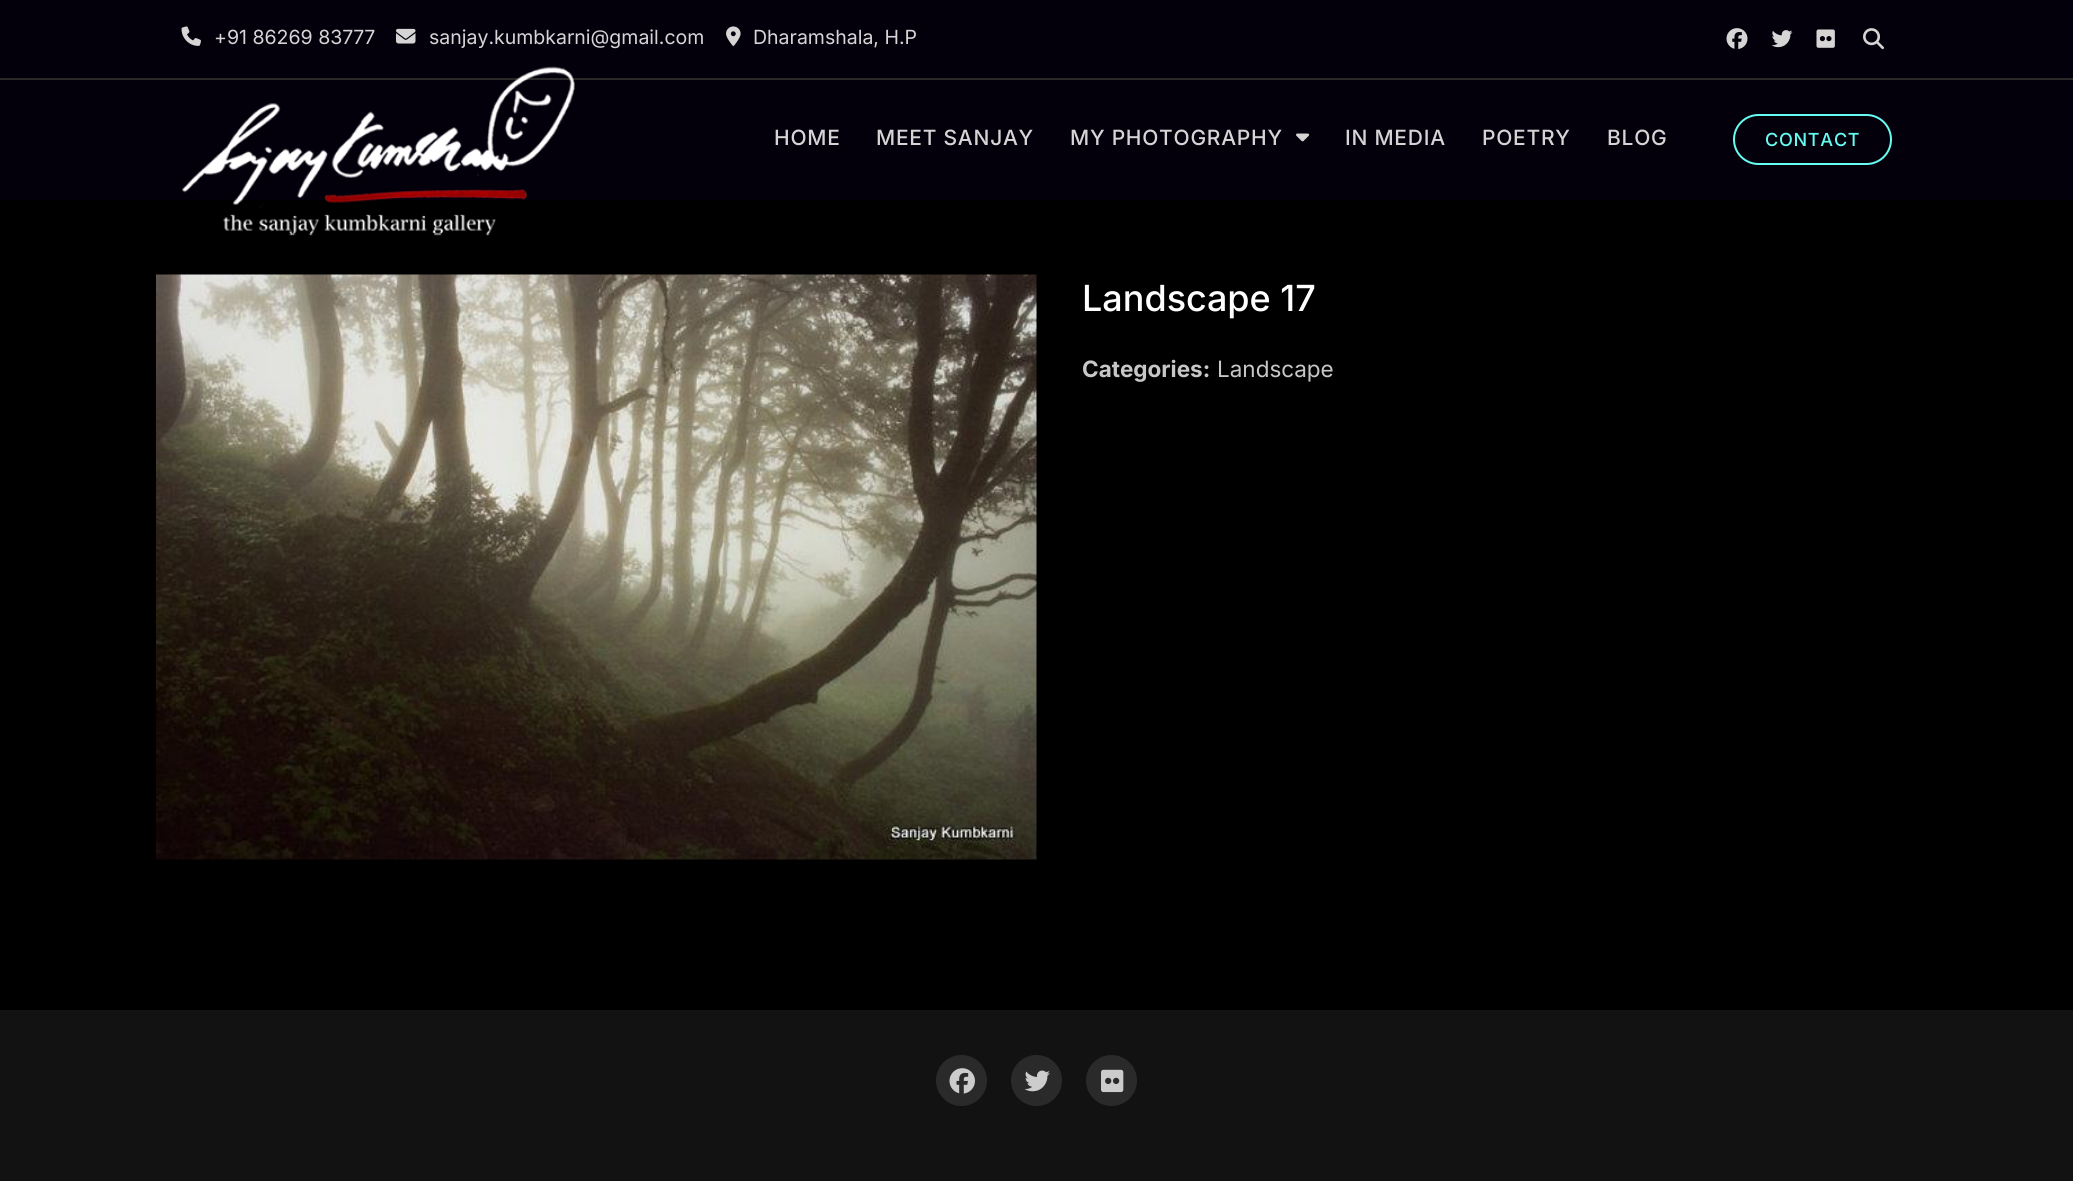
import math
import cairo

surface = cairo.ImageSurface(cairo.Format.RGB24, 2073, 1181)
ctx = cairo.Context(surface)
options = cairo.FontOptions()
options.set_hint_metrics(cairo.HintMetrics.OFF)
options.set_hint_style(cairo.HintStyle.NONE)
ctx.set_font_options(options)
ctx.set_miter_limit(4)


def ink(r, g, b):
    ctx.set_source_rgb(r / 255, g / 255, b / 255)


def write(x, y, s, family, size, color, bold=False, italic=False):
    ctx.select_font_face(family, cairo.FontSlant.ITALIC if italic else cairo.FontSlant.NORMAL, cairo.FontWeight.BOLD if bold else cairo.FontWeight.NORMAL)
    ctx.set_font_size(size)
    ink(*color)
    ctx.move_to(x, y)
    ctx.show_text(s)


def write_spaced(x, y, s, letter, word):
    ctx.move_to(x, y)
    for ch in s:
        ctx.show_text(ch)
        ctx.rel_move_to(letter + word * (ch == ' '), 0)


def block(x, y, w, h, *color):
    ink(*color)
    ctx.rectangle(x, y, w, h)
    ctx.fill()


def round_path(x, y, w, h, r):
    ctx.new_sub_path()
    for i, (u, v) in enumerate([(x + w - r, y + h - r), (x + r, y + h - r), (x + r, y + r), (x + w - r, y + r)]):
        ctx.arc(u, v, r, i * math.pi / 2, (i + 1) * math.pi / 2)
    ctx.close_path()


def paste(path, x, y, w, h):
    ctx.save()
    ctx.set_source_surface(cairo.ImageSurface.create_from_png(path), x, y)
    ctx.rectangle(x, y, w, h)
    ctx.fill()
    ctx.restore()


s1 = dict(family="Inter", size=19.5, color=(213, 213, 213))
s2 = dict(family="Inter Medium", size=36, color=(255, 255, 255))
s3 = dict(family="Inter", size=22.5, color=(199, 199, 199), bold=True)
s4 = dict(family="Inter", size=22.5, color=(199, 199, 199))

ink(0, 0, 0)
ctx.paint()
block(0, 0, 2073, 78, 4, 0, 11)
block(0, 78, 2073, 2, 41, 41, 41)
paste("pic1.png", 181, 26, 20, 20)
write(214, 44, "+91 86269 83777", **s1)
paste("pic2.png", 396, 28, 20, 16)
write(429, 44, "sanjay.kumbkarni@gmail.com", **s1)
paste("pic3.png", 726, 26, 15, 20)
write(753, 44, "Dharamshala, H.P", **s1)
paste("pic4.png", 1726, 28, 22, 21)
paste("pic5.png", 1771, 30, 22, 18)
paste("pic6.png", 1816, 29, 19, 19)
paste("pic7.png", 1863, 28, 21, 22)
block(0, 80, 2073, 120, 4, 0, 11)
paste("pic8.png", 182, 66, 393, 170)
ctx.select_font_face("Inter Medium")
ctx.set_font_size(21)
ink(213, 213, 213)
write_spaced(774, 145, "HOME", 0.75, 0)
write_spaced(876, 145, "MEET SANJAY", 0.75, 0)
write_spaced(1070, 145, "MY PHOTOGRAPHY", 0.75, 0)
paste("pic9.png", 1296, 133, 14, 9)
write_spaced(1345, 145, "IN MEDIA", 0.75, 0)
write_spaced(1482, 145, "POETRY", 0.75, 0)
write_spaced(1607, 145, "BLOG", 0.75, 0)
round_path(1734, 115, 157, 49, 24.5)
ink(102, 252, 241)
ctx.stroke()
ctx.set_font_size(18)
write_spaced(1765, 146, "CONTACT", 0.75, 0)
paste("pic10.png", 156, 274, 881, 586)
write(1082, 311, "Landscape 17", **s2)
write(1082, 377, "Categories:", **s3)
write(1217, 377, "Landscape", **s4)
block(0, 1010, 2073, 171, 18, 18, 18)
ink(42, 42, 42)
ctx.new_path()
ctx.arc(961.5, 1080.5, 25.5, 0, 2 * math.pi)
ctx.fill()
paste("pic11.png", 949, 1068, 26, 26)
ctx.arc(1036.5, 1080.5, 25.5, 0, 2 * math.pi)
ctx.fill()
paste("pic12.png", 1024, 1070, 26, 22)
ctx.arc(1111.5, 1080.5, 25.5, 0, 2 * math.pi)
ctx.fill()
paste("pic13.png", 1101, 1069, 23, 24)
surface.write_to_png("screenshot.png")
